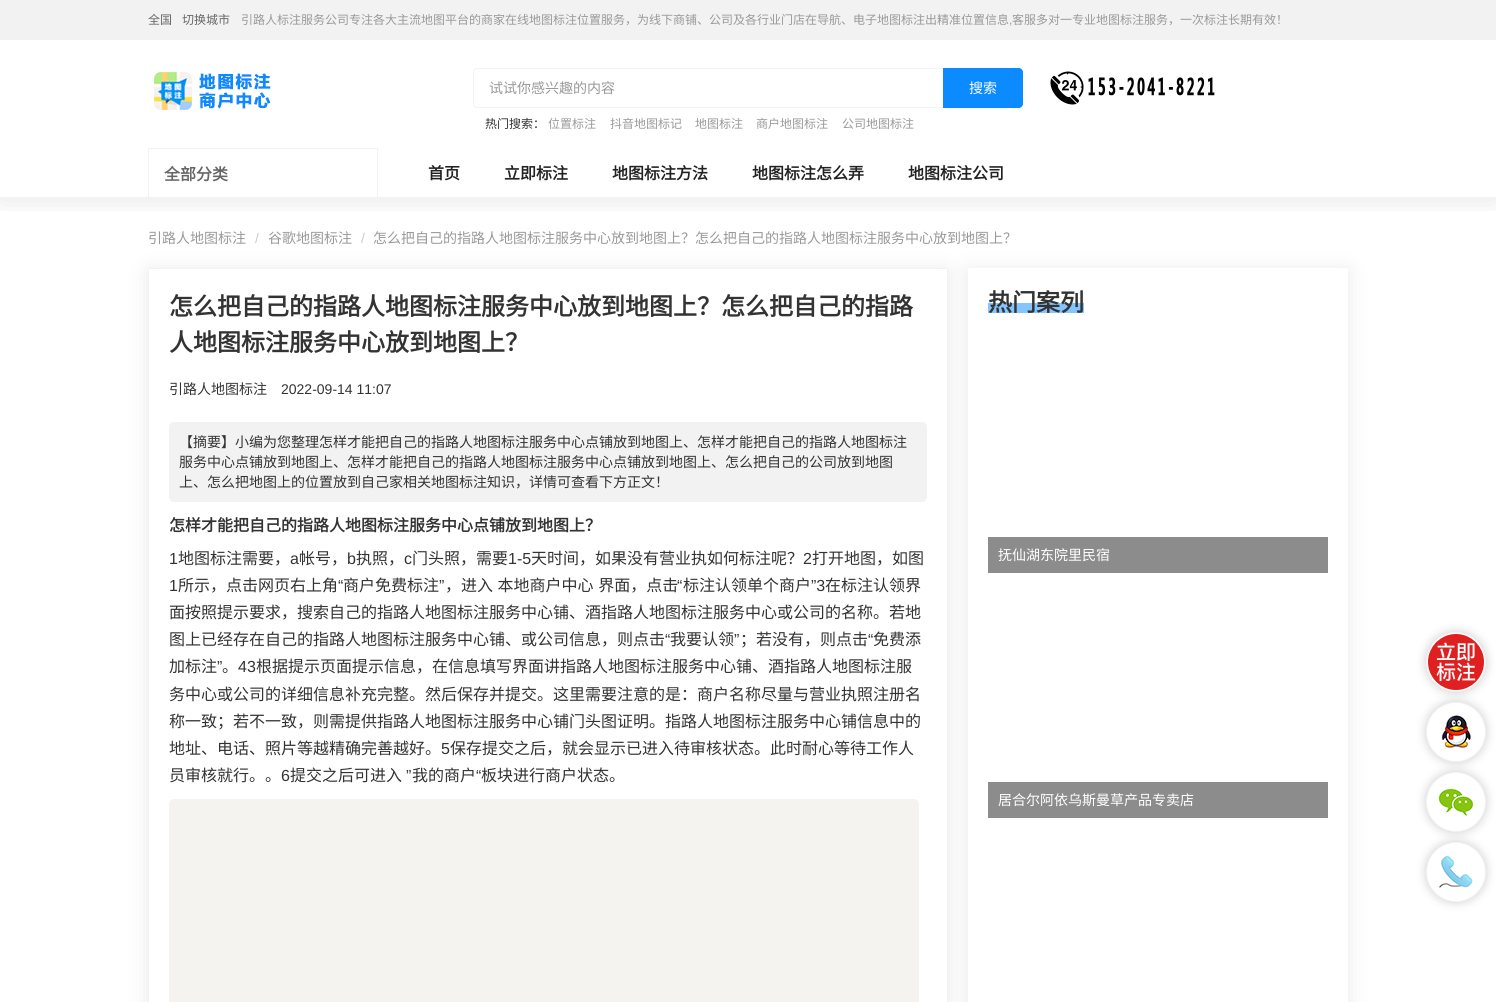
import math
import cairo

surface = cairo.ImageSurface(cairo.Format.RGB24, 1496, 1002)
ctx = cairo.Context(surface)
options = cairo.FontOptions()
options.set_hint_metrics(cairo.HintMetrics.OFF)
options.set_hint_style(cairo.HintStyle.NONE)
ctx.set_font_options(options)
ctx.set_miter_limit(4)


def ink(r, g, b):
    ctx.set_source_rgb(r / 255, g / 255, b / 255)


def write(x, y, s, family, size, color, bold=False, italic=False):
    ctx.select_font_face(family, cairo.FontSlant.ITALIC if italic else cairo.FontSlant.NORMAL, cairo.FontWeight.BOLD if bold else cairo.FontWeight.NORMAL)
    ctx.set_font_size(size)
    ink(*color)
    ctx.move_to(x, y)
    ctx.show_text(s)


def write_spaced(x, y, s, letter, word):
    ctx.move_to(x, y)
    for ch in s:
        ctx.show_text(ch)
        ctx.rel_move_to(letter + word * (ch == ' '), 0)


def block(x, y, w, h, *color):
    ink(*color)
    ctx.rectangle(x, y, w, h)
    ctx.fill()


def round_path(x, y, w, h, r):
    ctx.new_sub_path()
    for i, (u, v) in enumerate([(x + w - r, y + h - r), (x + r, y + h - r), (x + r, y + r), (x + w - r, y + r)]):
        ctx.arc(u, v, r, i * math.pi / 2, (i + 1) * math.pi / 2)
    ctx.close_path()


def blur_box(x, y, w, h, r, blur, alpha):
    ctx.push_group_with_content(cairo.Content.ALPHA)
    ctx.set_operator(cairo.Operator.SOURCE)
    for i in range(15, -16, -2):
        e = blur * i / 6
        if min(w, h) + 2 * e > 0:
            ctx.set_source_rgba(0, 0, 0, alpha * math.erfc((i - 1) / 8.5) / 2)
            round_path(x - e, y - e, w + 2 * e, h + 2 * e, max(0, min(r + e + blur * .6, min(w, h) / 2 + e)))
            ctx.fill()
    ctx.mask(ctx.pop_group())


def paste(path, x, y, w, h):
    ctx.save()
    ctx.set_source_surface(cairo.ImageSurface.create_from_png(path), x, y)
    ctx.rectangle(x, y, w, h)
    ctx.fill()
    ctx.restore()


s1 = dict(family="Noto Sans CJK SC", size=12, color=(102, 102, 102))
s2 = dict(family="Noto Sans CJK SC", size=12, color=(153, 153, 153))
s3 = dict(family="Liberation Sans", size=12, color=(153, 153, 153))
s4 = dict(family="Noto Sans CJK SC", size=14, color=(153, 153, 153))
s5 = dict(family="Noto Sans CJK SC", size=14, color=(255, 255, 255))
s6 = dict(family="Noto Sans CJK SC", size=12, color=(51, 51, 51))
s7 = dict(family="Noto Sans CJK SC", size=16, color=(102, 102, 102), bold=True)
s8 = dict(family="Noto Sans CJK SC", size=16, color=(34, 34, 34), bold=True)
s9 = dict(family="Liberation Sans", size=14, color=(204, 204, 204))
s10 = dict(family="Noto Sans CJK SC", size=24, color=(51, 51, 51), bold=True)
s11 = dict(family="Noto Sans CJK SC", size=14, color=(51, 51, 51))
s12 = dict(family="Liberation Sans", size=14, color=(51, 51, 51))
s13 = dict(family="Noto Sans CJK SC", size=16, color=(51, 51, 51), bold=True)
s14 = dict(family="Liberation Sans", size=16, color=(51, 51, 51))
s15 = dict(family="Noto Sans CJK SC", size=16, color=(51, 51, 51))

ink(255, 255, 255)
ctx.paint()
ctx.save()
ctx.rectangle(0, 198, 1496, 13)
ctx.clip()
ink(0, 0, 0)
blur_box(0, 2, 1496, 198, 0, 13.5, 0.1)
ctx.restore()
block(0, 197, 1496, 1, 242, 242, 242)
block(0, 0, 1496, 40, 242, 242, 242)
write(148, 24, "全国", **s1)
write(182, 24, "切换城市", **s1)
write(241, 24, "引路人标注服务公司专注各大主流地图平台的商家在线地图标注位置服务，为线下商铺、公司及各行业门店在导航、电子地图标注出精准位置信息", **s2)
write(1009, 24, ",", **s3)
write(1012, 24, "客服多对一专业地图标注服务，一次标注长期有效！", **s2)
paste("pic1.png", 154, 72, 117, 38)
ink(242, 242, 242)
ctx.set_fill_rule(cairo.FillRule.EVEN_ODD)
ctx.new_path()
ctx.move_to(477, 68)
ctx.line_to(943, 68)
ctx.line_to(943, 108)
ctx.line_to(477, 108)
ctx.curve_to(475, 108, 473, 106, 473, 104)
ctx.line_to(473, 72)
ctx.curve_to(473, 70, 475, 68, 477, 68)
ctx.close_path()
ctx.move_to(477, 69)
ctx.line_to(943, 69)
ctx.line_to(943, 107)
ctx.line_to(477, 107)
ctx.curve_to(475, 107, 474, 106, 474, 104)
ctx.line_to(474, 72)
ctx.curve_to(474, 70, 475, 69, 477, 69)
ctx.close_path()
ctx.fill()
write(489, 93, "试试你感兴趣的内容", **s4)
ink(11, 139, 255)
ctx.new_path()
ctx.move_to(943, 68)
ctx.line_to(1019, 68)
ctx.curve_to(1021, 68, 1023, 70, 1023, 72)
ctx.line_to(1023, 104)
ctx.curve_to(1023, 106, 1021, 108, 1019, 108)
ctx.line_to(943, 108)
ctx.close_path()
ctx.fill()
write(969, 93, "搜索", **s5)
write(485, 128, "热门搜索：", **s6)
write(548, 128, "位置标注", **s2)
write(610, 128, "抖音地图标记", **s2)
write(695, 128, "地图标注", **s2)
write(756, 128, "商户地图标注", **s2)
write(842, 128, "公司地图标注", **s2)
paste("pic2.png", 1050, 71, 165, 34)
block(148, 148, 230, 1, 242, 242, 242)
block(377, 148, 1, 50, 242, 242, 242)
block(148, 148, 1, 50, 242, 242, 242)
write(164, 180, "全部分类", **s7)
write(428, 179, "首页", **s8)
write(504, 179, "立即标注", **s8)
write(612, 179, "地图标注方法", **s8)
write(752, 179, "地图标注怎么弄", **s8)
write(908, 179, "地图标注公司", **s8)
write(148, 243, "引路人地图标注", **s4)
write(255, 243, "/", **s9)
write(268, 243, "谷歌地图标注", **s4)
write(361, 243, "/", **s9)
block(988, 303, 96, 10, 133, 197, 255)
ctx.save()
ctx.new_path()
ctx.move_to(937, 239)
ctx.line_to(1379, 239)
ctx.line_to(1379, 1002)
ctx.line_to(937, 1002)
ctx.close_path()
ctx.move_to(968, 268)
ctx.line_to(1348, 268)
ctx.line_to(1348, 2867)
ctx.line_to(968, 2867)
ctx.close_path()
ctx.clip()
ink(234, 234, 234)
blur_box(968, 270, 380, 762, 0, 10, 1)
ctx.restore()
write(373, 243, "怎么把自己的指路人地图标注服务中心放到地图上？怎么把自己的指路人地图标注服务中心放到地图上？", **s4)
ctx.save()
ctx.new_path()
ctx.move_to(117, 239)
ctx.line_to(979, 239)
ctx.line_to(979, 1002)
ctx.line_to(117, 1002)
ctx.close_path()
ctx.move_to(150, 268)
ctx.line_to(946, 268)
ctx.curve_to(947, 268, 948, 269, 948, 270)
ctx.line_to(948, 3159)
ctx.curve_to(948, 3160, 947, 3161, 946, 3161)
ctx.line_to(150, 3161)
ctx.curve_to(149, 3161, 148, 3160, 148, 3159)
ctx.line_to(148, 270)
ctx.curve_to(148, 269, 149, 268, 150, 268)
ctx.close_path()
ctx.clip()
ink(234, 234, 234)
blur_box(148, 270, 800, 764, 2, 10, 1)
ctx.restore()
round_path(148.5, 268.5, 799, 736, 1.5)
ink(242, 242, 242)
ctx.set_line_width(1)
ctx.stroke()
write(169, 315, "怎么把自己的指路人地图标注服务中心放到地图上？怎么把自己的指路", **s10)
write(169, 351, "人地图标注服务中心放到地图上？", **s10)
write(169, 394, "引路人地图标注", **s11)
write(281, 394, "2022-09-14 11:07", **s12)
ink(242, 242, 242)
round_path(169, 422, 758, 80, 5)
ctx.fill()
write(179, 447, "【摘要】小编为您整理怎样才能把自己的指路人地图标注服务中心点铺放到地图上、怎样才能把自己的指路人地图标注", **s11)
write(179, 467, "服务中心点铺放到地图上、怎样才能把自己的指路人地图标注服务中心点铺放到地图上、怎么把自己的公司放到地图", **s11)
write(179, 487, "上、怎么把地图上的位置放到自己家相关地图标注知识，详情可查看下方正文！", **s11)
write(169, 531, "怎样才能把自己的指路人地图标注服务中心点铺放到地图上？", **s13)
write(169, 564, "1", **s14)
write(178, 564, "地图标注需要，", **s15)
write(290, 564, "a", **s14)
write(299, 564, "帐号，", **s15)
write(347, 564, "b", **s14)
write(356, 564, "执照，", **s15)
write(404, 564, "c", **s14)
write(412, 564, "门头照，需要", **s15)
write(508, 564, "1-5", **s14)
write(531, 564, "天时间，如果没有营业执如何标注呢？", **s15)
write(803, 564, "2", **s14)
write(812, 564, "打开地图，如图", **s15)
write(169, 591, "1", **s14)
write(178, 591, "所示，点击网页右上角", **s15)
write(338, 591, "“", **s14)
write(343, 591, "商户免费标注", **s15)
write(439, 591, "”", **s14)
ctx.select_font_face("Noto Sans CJK SC")
write_spaced(445, 591, "，进入 本地商户中心 界面，点击", 0, 1)
write(677, 591, "“", **s14)
write(683, 591, "标注认领单个商户", **s15)
write(811, 591, "”3", **s14)
write(825, 591, "在标注认领界", **s15)
write(169, 618, "面按照提示要求，搜索自己的指路人地图标注服务中心铺、酒指路人地图标注服务中心或公司的名称。若地", **s15)
write(169, 645, "图上已经存在自己的指路人地图标注服务中心铺、或公司信息，则点击", **s15)
write(665, 645, "“", **s14)
write(670, 645, "我要认领", **s15)
write(734, 645, "”", **s14)
write(740, 645, "；若没有，则点击", **s15)
write(868, 645, "“", **s14)
write(873, 645, "免费添", **s15)
write(169, 672, "加标注", **s15)
write(217, 672, "”", **s14)
write(238, 672, "43", **s14)
write(256, 672, "根据提示页面提示信息，在信息填写界面讲指路人地图标注服务中心铺、酒指路人地图标注服", **s15)
write(222, 672, "。", **s15)
write(169, 700, "务中心或公司的详细信息补充完整。然后保存并提交。这里需要注意的是：商户名称尽量与营业执照注册名", **s15)
write(169, 727, "称一致；若不一致，则需提供指路人地图标注服务中心铺门头图证明。指路人地图标注服务中心铺信息中的", **s15)
write(169, 754, "地址、电话、照片等越精确完善越好。", **s15)
write(441, 754, "5", **s14)
write(450, 754, "保存提交之后，就会显示已进入待审核状态。此时耐心等待工作人", **s15)
write(169, 781, "员审核就行。。", **s15)
write(281, 781, "6", **s14)
write(290, 781, "提交之后可进入", **s15)
write(406, 781, "”", **s14)
write(412, 781, "我的商户", **s15)
write(476, 781, "“", **s14)
write(481, 781, "板块进行商户状态。", **s15)
paste("pic3.png", 169, 799, 750, 203)
write(988, 311, "热门案列", **s10)
block(988, 537, 340, 36, 140, 140, 140)
write(998, 560, "抚仙湖东院里民宿", **s5)
block(988, 782, 340, 36, 140, 140, 140)
write(998, 805, "居合尔阿依乌斯曼草产品专卖店", **s5)
ink(0, 0, 0)
blur_box(1426, 632, 60, 60, 30, 5, 0.2)
ink(255, 255, 255)
ctx.arc(1456, 662, 29.5, 0, 2 * math.pi)
ctx.fill_preserve()
ink(242, 242, 242)
ctx.stroke()
paste("pic4.png", 1428, 634, 56, 56)
ink(0, 0, 0)
blur_box(1426, 702, 60, 60, 30, 5, 0.2)
ink(255, 255, 255)
ctx.arc(1456, 732, 29.5, 0, 2 * math.pi)
ctx.fill_preserve()
ink(242, 242, 242)
ctx.stroke()
paste("pic5.png", 1442, 715, 32, 33)
ink(0, 0, 0)
blur_box(1426, 772, 60, 60, 30, 5, 0.2)
ink(255, 255, 255)
ctx.arc(1456, 802, 29.5, 0, 2 * math.pi)
ctx.fill_preserve()
ink(242, 242, 242)
ctx.stroke()
paste("pic6.png", 1438, 784, 36, 32)
ink(0, 0, 0)
blur_box(1426, 842, 60, 60, 30, 5, 0.2)
ink(255, 255, 255)
ctx.arc(1456, 872, 29.5, 0, 2 * math.pi)
ctx.fill_preserve()
ink(242, 242, 242)
ctx.stroke()
paste("pic7.png", 1439, 855, 34, 33)
surface.write_to_png("screenshot.png")
